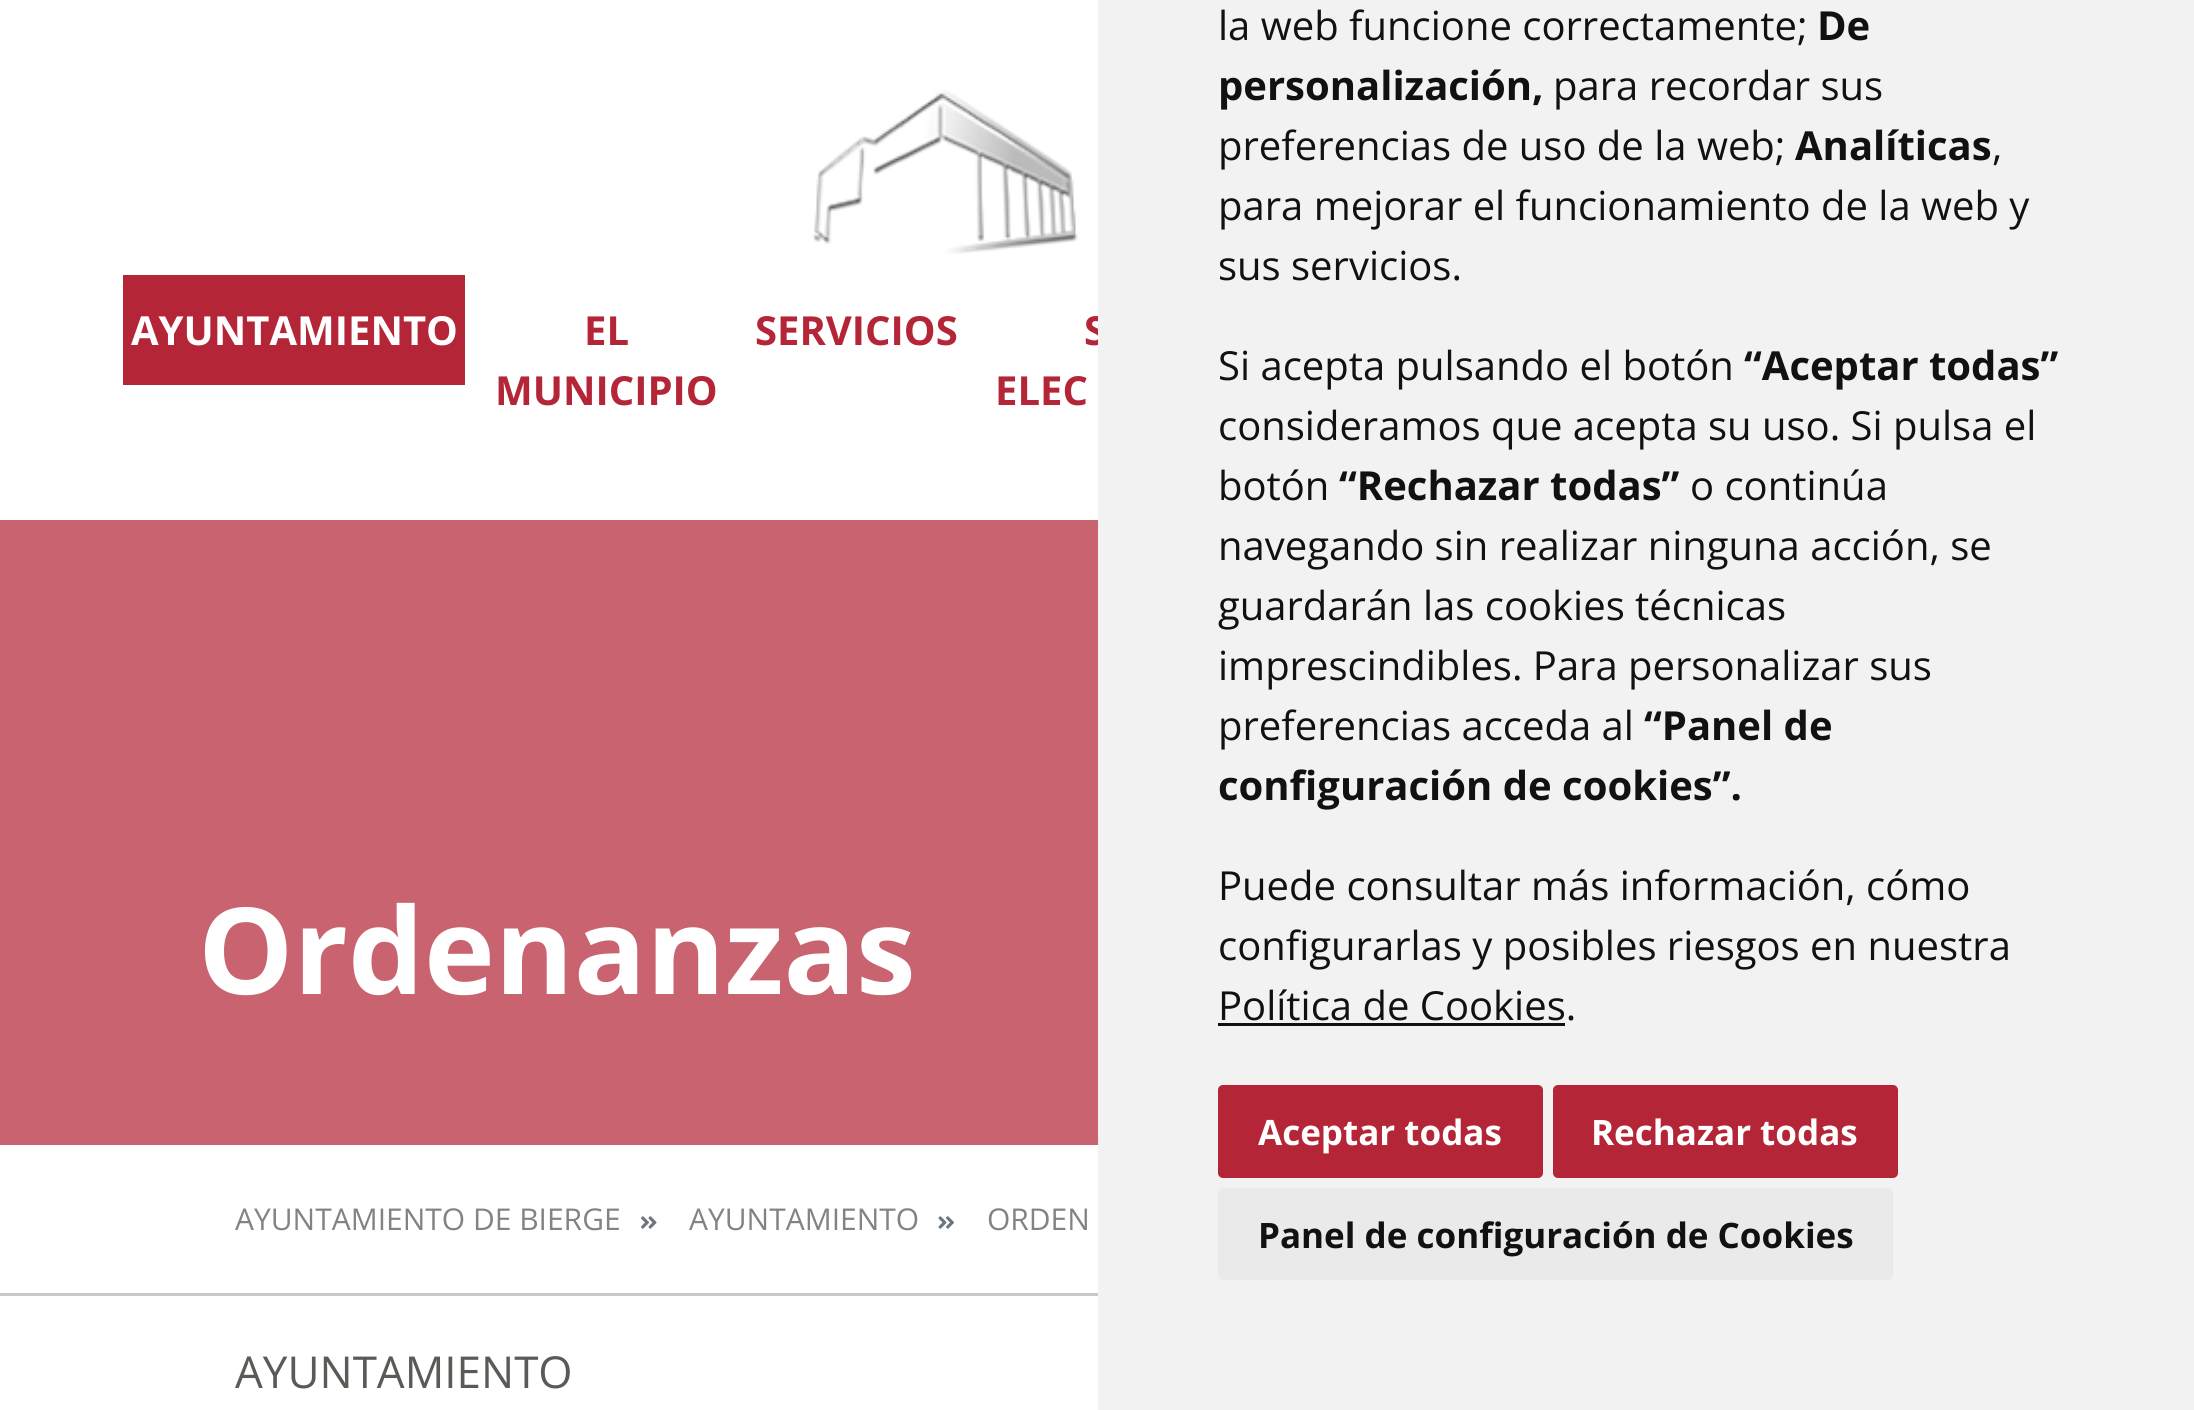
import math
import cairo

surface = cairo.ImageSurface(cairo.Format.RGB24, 2194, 1410)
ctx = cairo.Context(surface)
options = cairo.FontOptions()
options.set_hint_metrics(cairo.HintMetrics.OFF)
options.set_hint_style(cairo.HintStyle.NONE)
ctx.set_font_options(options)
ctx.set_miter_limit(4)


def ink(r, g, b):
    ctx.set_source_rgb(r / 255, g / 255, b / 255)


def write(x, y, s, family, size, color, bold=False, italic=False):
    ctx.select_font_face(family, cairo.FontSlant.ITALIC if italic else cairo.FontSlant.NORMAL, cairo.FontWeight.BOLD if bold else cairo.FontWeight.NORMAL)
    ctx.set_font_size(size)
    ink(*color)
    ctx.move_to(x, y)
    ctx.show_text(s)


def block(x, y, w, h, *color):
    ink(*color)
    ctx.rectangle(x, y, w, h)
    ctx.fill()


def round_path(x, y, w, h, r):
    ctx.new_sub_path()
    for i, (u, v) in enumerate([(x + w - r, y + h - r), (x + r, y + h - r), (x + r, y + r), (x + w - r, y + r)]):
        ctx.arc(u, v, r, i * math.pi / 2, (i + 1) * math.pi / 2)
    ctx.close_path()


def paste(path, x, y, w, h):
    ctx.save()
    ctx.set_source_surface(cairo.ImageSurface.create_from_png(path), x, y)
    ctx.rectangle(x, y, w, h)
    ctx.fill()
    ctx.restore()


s1 = dict(family="Open Sans", size=40, color=(255, 255, 255), bold=True)
s2 = dict(family="Open Sans", size=40, color=(180, 38, 55), bold=True)
s3 = dict(family="Open Sans", size=120, color=(255, 255, 255), bold=True)
s4 = dict(family="Open Sans", size=30, color=(131, 131, 131))
s5 = dict(family="Open Sans", size=44, color=(90, 90, 87))
s6 = dict(family="Open Sans", size=40, color=(17, 17, 17))
s7 = dict(family="Open Sans", size=40, color=(17, 17, 17), bold=True)
s8 = dict(family="Open Sans", size=35, color=(255, 255, 255), bold=True)
s9 = dict(family="Open Sans", size=35, color=(17, 17, 17), bold=True)

ink(255, 255, 255)
ctx.paint()
paste("pic1.png", 812, 90, 266, 164)
block(123, 275, 342, 110, 180, 38, 55)
write(131, 345, "AYUNTAMIENTO", **s1)
write(584, 345, "EL", **s2)
write(495, 405, "MUNICIPIO", **s2)
write(755, 345, "SERVICIOS", **s2)
write(1084, 345, "S", **s2)
write(995, 405, "ELEC", **s2)
block(0, 520, 1098, 625, 201, 99, 111)
write(198, 994, "Ordenanzas", **s3)
block(0, 1293, 1098, 3, 202, 201, 201)
write(235, 1230, "AYUNTAMIENTO DE BIERGE", **s4)
paste("pic2.png", 641, 1216, 16, 13)
write(689, 1230, "AYUNTAMIENTO", **s4)
paste("pic3.png", 938, 1216, 16, 13)
write(987, 1230, "ORDEN", **s4)
write(235, 1388, "AYUNTAMIENTO", **s5)
block(1098, 0, 1096, 1410, 242, 242, 242)
write(1218, 40, "la web funcione correctamente;", **s6)
write(1817, 40, "De", **s7)
write(1218, 100, "personalización,", **s7)
write(1553, 100, "para recordar sus", **s6)
write(1218, 160, "preferencias de uso de la web;", **s6)
write(1795, 160, "Analíticas", **s7)
write(1992, 160, ",", **s6)
write(1218, 220, "para mejorar el funcionamiento de la web y", **s6)
write(1218, 280, "sus servicios.", **s6)
write(1218, 380, "Si acepta pulsando el botón", **s6)
write(1744, 380, "“Aceptar todas”", **s7)
write(1218, 440, "consideramos que acepta su uso. Si pulsa el", **s6)
write(1218, 500, "botón", **s6)
write(1339, 500, "“Rechazar todas”", **s7)
write(1690, 500, "o continúa", **s6)
write(1218, 560, "navegando sin realizar ninguna acción, se", **s6)
write(1218, 620, "guardarán las cookies técnicas", **s6)
write(1218, 680, "imprescindibles. Para personalizar sus", **s6)
write(1218, 740, "preferencias acceda al", **s6)
write(1644, 740, "“Panel de", **s7)
write(1218, 800, "configuración de cookies”.", **s7)
write(1218, 900, "Puede consultar más información, cómo", **s6)
write(1218, 960, "configurarlas y posibles riesgos en nuestra", **s6)
write(1218, 1020, "Política de Cookies.", **s6)
block(1218, 1023, 347, 3, 17, 17, 17)
ink(180, 38, 55)
round_path(1218, 1085, 325, 93, 5)
ctx.fill()
write(1258, 1145, "Aceptar todas", **s8)
ink(180, 38, 55)
round_path(1553, 1085, 345, 93, 5)
ctx.fill()
write(1591, 1145, "Rechazar todas", **s8)
ink(234, 234, 234)
round_path(1218, 1188, 675, 92, 5)
ctx.fill()
write(1258, 1248, "Panel de configuración de Cookies", **s9)
surface.write_to_png("screenshot.png")
